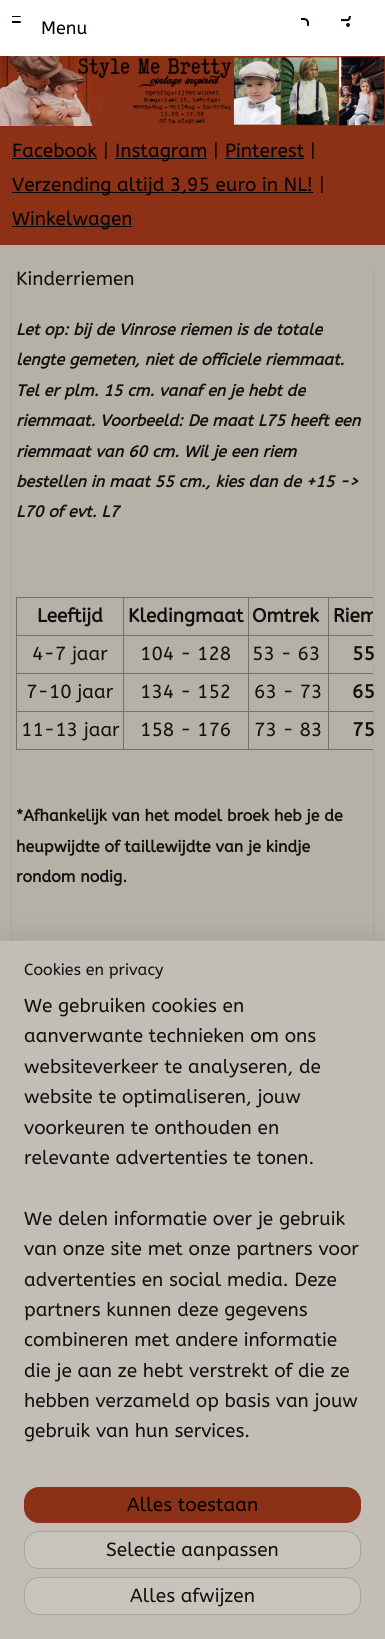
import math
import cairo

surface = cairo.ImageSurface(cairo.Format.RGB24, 385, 1639)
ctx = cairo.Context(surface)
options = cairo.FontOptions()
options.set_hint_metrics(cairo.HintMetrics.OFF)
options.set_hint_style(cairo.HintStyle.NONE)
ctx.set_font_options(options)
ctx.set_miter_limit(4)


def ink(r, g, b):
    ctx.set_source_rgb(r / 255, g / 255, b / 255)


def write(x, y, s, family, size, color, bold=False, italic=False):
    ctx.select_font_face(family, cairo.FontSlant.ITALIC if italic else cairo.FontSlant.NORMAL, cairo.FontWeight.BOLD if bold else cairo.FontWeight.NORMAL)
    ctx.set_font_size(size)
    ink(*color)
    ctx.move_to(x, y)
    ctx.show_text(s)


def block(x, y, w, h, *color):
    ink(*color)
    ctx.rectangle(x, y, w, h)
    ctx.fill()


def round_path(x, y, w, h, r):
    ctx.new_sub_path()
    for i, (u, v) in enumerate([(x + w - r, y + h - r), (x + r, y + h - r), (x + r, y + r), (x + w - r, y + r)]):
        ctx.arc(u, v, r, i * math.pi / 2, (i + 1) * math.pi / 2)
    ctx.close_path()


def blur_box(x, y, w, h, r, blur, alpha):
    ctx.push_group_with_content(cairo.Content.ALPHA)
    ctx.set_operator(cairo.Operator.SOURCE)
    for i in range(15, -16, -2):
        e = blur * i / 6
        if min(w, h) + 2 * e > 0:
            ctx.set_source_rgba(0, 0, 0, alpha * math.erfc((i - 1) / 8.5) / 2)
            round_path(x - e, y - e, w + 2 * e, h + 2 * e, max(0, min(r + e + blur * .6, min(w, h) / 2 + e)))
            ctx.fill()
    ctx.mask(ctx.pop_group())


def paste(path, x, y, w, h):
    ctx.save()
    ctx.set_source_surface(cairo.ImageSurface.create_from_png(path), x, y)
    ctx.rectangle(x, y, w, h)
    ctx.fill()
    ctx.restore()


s1 = dict(family="ABeeZee", size=18, color=(13, 3, 0))
s2 = dict(family="ABeeZee", size=19, color=(0, 0, 0))
s3 = dict(family="ABeeZee", size=19, color=(16, 16, 16))
s4 = dict(family="ABeeZee", size=16, color=(16, 16, 16), bold=True, italic=True)
s5 = dict(family="ABeeZee", size=19, color=(16, 16, 16), bold=True)
s6 = dict(family="ABeeZee", size=16, color=(16, 16, 16), bold=True)
s7 = dict(family="ABeeZee", size=16, color=(16, 16, 16))

ink(140, 49, 22)
ctx.paint()
block(0, 0, 385, 56, 255, 255, 255)
paste("pic1.png", 12, 16, 9, 7)
write(41, 34, "Menu", **s1)
paste("pic2.png", 301, 18, 8, 8)
paste("pic3.png", 341, 16, 10, 11)
paste("pic4.png", 0, 56, 385, 70)
write(12, 157, "Facebook", **s2)
block(12, 158, 85, 1, 0, 0, 0)
write(103, 157, "|", **s2)
block(115, 158, 92, 1, 0, 0, 0)
write(115, 157, "Instagram", **s2)
write(213, 157, "|", **s2)
write(225, 157, "Pinterest", **s2)
block(225, 158, 79, 1, 0, 0, 0)
write(310, 157, "|", **s2)
block(12, 192, 301, 1, 0, 0, 0)
write(12, 191, "Verzending altijd 3,95 euro in NL!", **s2)
write(319, 191, "|", **s2)
block(12, 226, 120, 1, 0, 0, 0)
write(12, 225, "Winkelwagen", **s2)
block(0, 245, 385, 696, 182, 177, 167)
ctx.save()
ctx.set_fill_rule(cairo.FillRule.EVEN_ODD)
ctx.new_path()
ctx.move_to(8, 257)
ctx.line_to(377, 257)
ctx.line_to(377, 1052)
ctx.line_to(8, 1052)
ctx.close_path()
ctx.move_to(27, 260)
ctx.line_to(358, 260)
ctx.curve_to(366.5, 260, 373, 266.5, 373, 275)
ctx.line_to(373, 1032)
ctx.curve_to(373, 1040.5, 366.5, 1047, 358, 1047)
ctx.line_to(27, 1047)
ctx.curve_to(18.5, 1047, 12, 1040.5, 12, 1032)
ctx.line_to(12, 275)
ctx.curve_to(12, 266.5, 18.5, 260, 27, 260)
ctx.close_path()
ctx.clip()
ink(0, 0, 0)
blur_box(12, 261, 361, 787, 15, 1, 0.15)
ctx.restore()
write(16, 285, "Kinderriemen", **s3)
write(16, 335, "Let op: bij de Vinrose riemen is de totale", **s4)
write(16, 365, "lengte gemeten, niet de officiele riemmaat.", **s4)
write(16, 396, "Tel er plm. 15 cm. vanaf en je hebt de", **s4)
write(16, 426, "riemmaat. Voorbeeld: De maat L75 heeft een", **s4)
write(16, 457, "riemmaat van 60 cm. Wil je een riem", **s4)
write(16, 487, "bestellen in maat 55 cm., kies dan de +15 ->", **s4)
write(16, 517, "L70 of evt. L7", **s4)
block(16, 597, 357, 1, 111, 112, 114)
block(16, 749, 357, 1, 111, 112, 114)
block(16, 597, 1, 153, 111, 112, 114)
write(37, 622, "Leeftijd", **s5)
block(328, 635, 45, 1, 111, 112, 114)
block(328, 673, 45, 1, 111, 112, 114)
block(328, 711, 45, 1, 111, 112, 114)
block(328, 711, 1, 39, 111, 112, 114)
block(248, 711, 81, 1, 111, 112, 114)
block(328, 673, 1, 39, 111, 112, 114)
block(248, 673, 81, 1, 111, 112, 114)
block(328, 635, 1, 39, 111, 112, 114)
block(248, 635, 81, 1, 111, 112, 114)
block(248, 711, 1, 39, 111, 112, 114)
block(123, 711, 126, 1, 111, 112, 114)
block(248, 673, 1, 39, 111, 112, 114)
block(123, 673, 126, 1, 111, 112, 114)
block(248, 635, 1, 39, 111, 112, 114)
block(123, 635, 126, 1, 111, 112, 114)
block(123, 711, 1, 39, 111, 112, 114)
block(16, 711, 108, 1, 111, 112, 114)
block(123, 673, 1, 39, 111, 112, 114)
block(16, 673, 108, 1, 111, 112, 114)
block(123, 635, 1, 39, 111, 112, 114)
block(16, 635, 108, 1, 111, 112, 114)
block(123, 597, 1, 39, 111, 112, 114)
write(128, 622, "Kledingmaat", **s5)
block(248, 597, 1, 39, 111, 112, 114)
write(252, 622, "Omtrek", **s5)
block(328, 597, 1, 39, 111, 112, 114)
ctx.save()
round_path(12, 260, 361, 787, 15)
ctx.clip()
write(333, 622, "Riem", **s5)
ctx.restore()
write(32, 660, "4-7 jaar", **s3)
write(140, 660, "104 - 128", **s3)
write(252, 660, "53 - 63", **s3)
write(352, 660, "55", **s5)
write(26, 698, "7-10 jaar", **s3)
write(140, 698, "134 - 152", **s3)
write(254, 698, "63 - 73", **s3)
write(352, 698, "65", **s5)
write(21, 736, "11-13 jaar", **s3)
write(140, 736, "158 - 176", **s3)
write(254, 736, "73 - 83", **s3)
write(352, 736, "75", **s5)
write(16, 821, "*Afhankelijk van het model broek heb je de", **s6)
write(16, 852, "heupwijdte of taillewijdte van je kindje", **s6)
write(16, 882, "rondom nodig.", **s6)
ink(0, 0, 0)
blur_box(10, 951, 365, 678, 0, 18, 0.2)
block(0, 941, 385, 698, 194, 189, 181)
write(24, 975, "Cookies en privacy", **s7)
write(24, 1012, "We gebruiken cookies en", **s3)
write(24, 1042, "aanverwante technieken om ons", **s3)
write(24, 1073, "websiteverkeer te analyseren, de", **s3)
write(24, 1103, "website te optimaliseren, jouw", **s3)
write(24, 1134, "voorkeuren te onthouden en", **s3)
write(24, 1164, "relevante advertenties te tonen.", **s3)
write(24, 1225, "We delen informatie over je gebruik", **s3)
write(24, 1255, "van onze site met onze partners voor", **s3)
write(24, 1286, "advertenties en social media. Deze", **s3)
write(24, 1316, "partners kunnen deze gegevens", **s3)
write(24, 1346, "combineren met andere informatie", **s3)
write(24, 1377, "die je aan ze hebt verstrekt of die ze", **s3)
write(24, 1407, "hebben verzameld op basis van jouw", **s3)
write(24, 1437, "gebruik van hun services.", **s3)
ink(140, 49, 22)
round_path(24, 1487, 337, 36, 15)
ctx.fill()
write(127, 1511, "Alles toestaan", **s2)
ink(200, 196, 188)
round_path(24, 1531, 337, 38, 15)
ctx.fill()
round_path(24.5, 1531.5, 336, 37, 14.5)
ctx.set_source_rgba(0, 0, 0, 0.16)
ctx.set_line_width(1)
ctx.stroke()
write(106, 1556, "Selectie aanpassen", **s3)
ink(200, 196, 188)
round_path(24, 1577, 337, 38, 15)
ctx.fill()
round_path(24.5, 1577.5, 336, 37, 14.5)
ctx.set_source_rgba(0, 0, 0, 0.16)
ctx.stroke()
write(130, 1602, "Alles afwijzen", **s3)
surface.write_to_png("screenshot.png")
